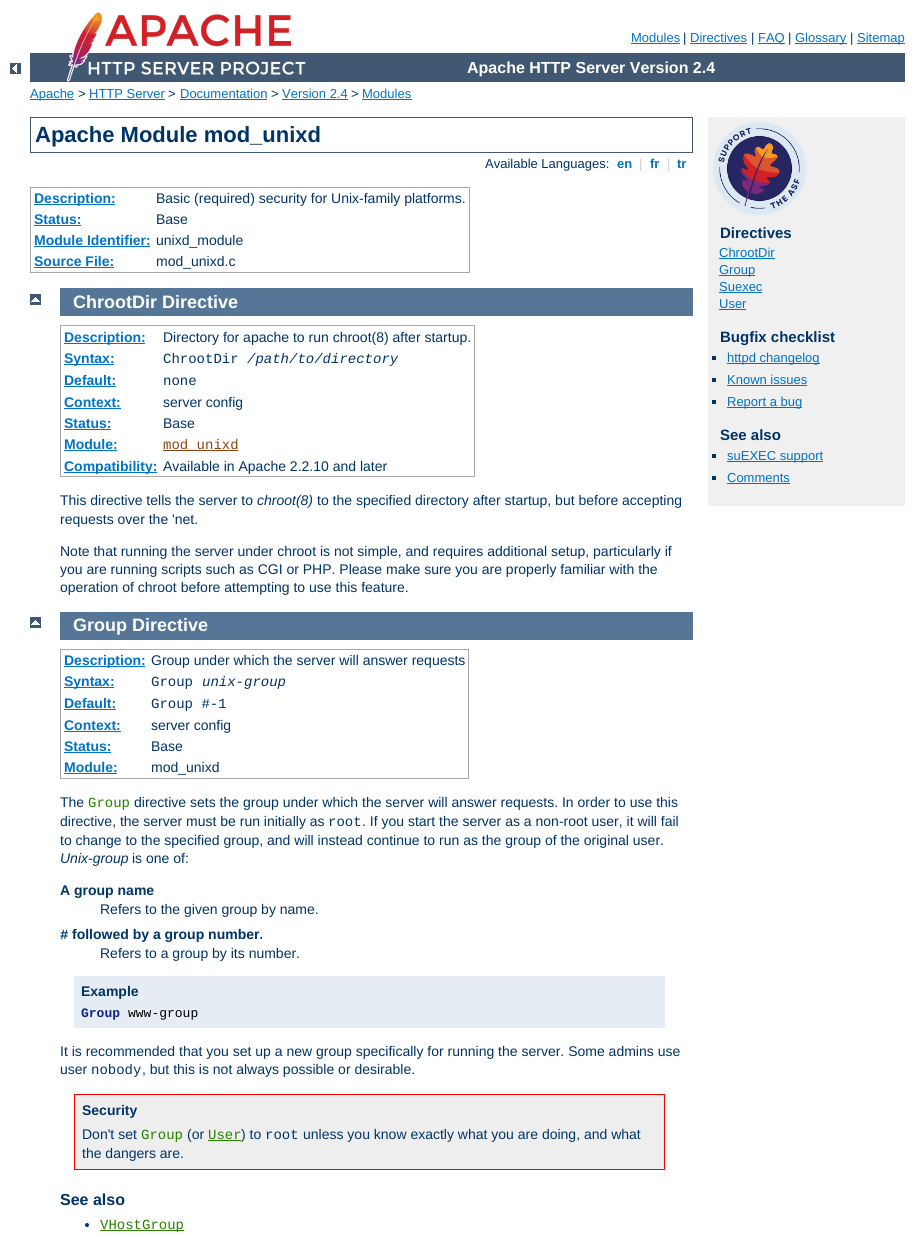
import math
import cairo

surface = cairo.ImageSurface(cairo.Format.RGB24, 919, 1237)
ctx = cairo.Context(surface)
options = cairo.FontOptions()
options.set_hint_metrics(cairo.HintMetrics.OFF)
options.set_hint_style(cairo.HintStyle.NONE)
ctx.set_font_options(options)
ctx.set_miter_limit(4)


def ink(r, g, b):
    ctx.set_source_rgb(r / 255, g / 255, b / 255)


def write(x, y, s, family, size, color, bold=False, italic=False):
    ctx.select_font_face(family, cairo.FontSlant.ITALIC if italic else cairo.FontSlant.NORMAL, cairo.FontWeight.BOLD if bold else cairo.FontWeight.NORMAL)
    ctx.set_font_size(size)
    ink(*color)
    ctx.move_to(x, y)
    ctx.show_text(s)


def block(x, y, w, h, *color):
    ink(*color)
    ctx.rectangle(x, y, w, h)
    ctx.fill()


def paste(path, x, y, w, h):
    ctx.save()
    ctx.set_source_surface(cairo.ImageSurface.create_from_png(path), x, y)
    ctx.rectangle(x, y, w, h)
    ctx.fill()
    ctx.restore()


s1 = dict(family="Liberation Sans", size=13, color=(0, 115, 199))
s2 = dict(family="Liberation Sans", size=13, color=(0, 51, 102))
s3 = dict(family="Liberation Sans", size=16, color=(255, 255, 255), bold=True)
s4 = dict(family="Liberation Sans", size=22, color=(0, 51, 102), bold=True)
s5 = dict(family="Liberation Sans", size=13, color=(0, 115, 199), bold=True)
s6 = dict(family="Liberation Sans", size=13, color=(204, 204, 204))
s7 = dict(family="Liberation Sans", size=14, color=(0, 115, 199), bold=True)
s8 = dict(family="Liberation Sans", size=14, color=(0, 51, 102))
s9 = dict(family="Liberation Sans", size=18, color=(255, 255, 255), bold=True)
s10 = dict(family="Liberation Mono", size=14, color=(0, 51, 102))
s11 = dict(family="Liberation Mono", size=14, color=(0, 51, 102), italic=True)
s12 = dict(family="Liberation Mono", size=14, color=(139, 69, 19))
s13 = dict(family="Liberation Sans", size=14, color=(0, 51, 102), italic=True)
s14 = dict(family="Liberation Sans", size=15, color=(0, 51, 102), bold=True)
s15 = dict(family="Liberation Mono", size=14, color=(40, 127, 0))
s16 = dict(family="Liberation Sans", size=14, color=(0, 51, 102), bold=True)
s17 = dict(family="Liberation Mono", size=14, color=(0, 51, 102), bold=True)
s18 = dict(family="Liberation Mono", size=13, color=(17, 34, 136), bold=True)
s19 = dict(family="Liberation Mono", size=13, color=(0, 0, 0))
s20 = dict(family="Liberation Sans", size=16, color=(0, 51, 102), bold=True)

ink(255, 255, 255)
ctx.paint()
paste("pic1.png", 10, 63, 11, 11)
block(30, 53, 875, 29, 64, 88, 113)
paste("pic2.png", 67, 12, 239, 70)
write(631, 42, "Modules", **s1)
block(631, 43, 49, 1, 0, 115, 199)
write(683, 42, "|", **s2)
write(690, 42, "Directives", **s1)
block(690, 43, 57, 1, 0, 115, 199)
write(751, 42, "|", **s2)
block(758, 43, 27, 1, 0, 115, 199)
write(758, 42, "FAQ", **s1)
write(788, 42, "|", **s2)
block(795, 43, 52, 1, 0, 115, 199)
write(795, 42, "Glossary", **s1)
write(850, 42, "|", **s2)
block(857, 43, 48, 1, 0, 115, 199)
write(857, 42, "Sitemap", **s1)
write(467, 73, "Apache HTTP Server Version 2.4", **s3)
block(30, 99, 44, 1, 0, 115, 199)
write(30, 98, "Apache", **s1)
write(78, 98, ">", **s2)
write(89, 98, "HTTP Server", **s1)
block(89, 99, 76, 1, 0, 115, 199)
write(168, 98, ">", **s2)
write(180, 98, "Documentation", **s1)
block(180, 99, 87, 1, 0, 115, 199)
write(271, 98, ">", **s2)
write(282, 98, "Version 2.4", **s1)
block(282, 99, 66, 1, 0, 115, 199)
write(351, 98, ">", **s2)
write(362, 98, "Modules", **s1)
block(362, 99, 50, 1, 0, 115, 199)
ctx.rectangle(30.5, 117.5, 662, 35)
ink(64, 88, 113)
ctx.set_line_width(1)
ctx.stroke()
write(35, 142, "Apache Module mod_unixd", **s4)
write(485, 168, "Available Languages:", **s2)
write(617, 168, "en", **s5)
write(639, 168, "|", **s6)
write(650, 168, "fr", **s5)
write(667, 168, "|", **s6)
write(677, 168, "tr", **s5)
block(30, 187, 440, 1, 170, 170, 170)
block(469, 187, 1, 86, 170, 170, 170)
block(30, 272, 440, 1, 170, 170, 170)
block(30, 187, 1, 86, 170, 170, 170)
block(34, 204, 81, 1, 0, 115, 199)
write(34, 203, "Description:", **s7)
write(156, 203, "Basic (required) security for Unix-family platforms.", **s8)
write(34, 224, "Status:", **s7)
block(34, 225, 47, 1, 0, 115, 199)
write(156, 224, "Base", **s8)
write(34, 245, "Module Identifier:", **s7)
block(34, 246, 116, 1, 0, 115, 199)
write(156, 245, "unixd_module", **s8)
write(34, 266, "Source File:", **s7)
block(34, 267, 80, 1, 0, 115, 199)
write(156, 266, "mod_unixd.c", **s8)
paste("pic3.png", 30, 294, 11, 11)
block(60, 288, 633, 28, 85, 118, 151)
write(73, 308, "ChrootDir Directive", **s9)
block(60, 325, 415, 1, 170, 170, 170)
block(474, 325, 1, 152, 170, 170, 170)
block(60, 476, 415, 1, 170, 170, 170)
block(60, 325, 1, 152, 170, 170, 170)
block(64, 343, 81, 1, 0, 115, 199)
write(64, 342, "Description:", **s7)
write(163, 342, "Directory for apache to run chroot(8) after startup.", **s8)
block(64, 364, 50, 1, 0, 115, 199)
write(64, 363, "Syntax:", **s7)
write(163, 363, "ChrootDir", **s10)
write(247, 363, "/path/to/directory", **s11)
write(64, 385, "Default:", **s7)
block(64, 386, 52, 1, 0, 115, 199)
write(163, 385, "none", **s10)
write(64, 407, "Context:", **s7)
block(64, 408, 57, 1, 0, 115, 199)
write(163, 407, "server config", **s8)
write(64, 428, "Status:", **s7)
block(64, 429, 47, 1, 0, 115, 199)
write(163, 428, "Base", **s8)
write(64, 449, "Module:", **s7)
block(64, 450, 53, 1, 0, 115, 199)
block(163, 450, 75, 1, 139, 69, 19)
write(163, 449, "mod_unixd", **s12)
block(64, 472, 93, 1, 0, 115, 199)
write(64, 471, "Compatibility:", **s7)
write(163, 471, "Available in Apache 2.2.10 and later", **s8)
write(60, 505, "This directive tells the server to", **s8)
write(257, 505, "chroot(8)", **s13)
write(317, 505, "to the specified directory after startup, but before accepting", **s8)
write(60, 524, "requests over the 'net.", **s8)
write(60, 556, "Note that running the server under chroot is not simple, and requires additional setup, particularly if", **s8)
write(60, 574, "you are running scripts such as CGI or PHP. Please make sure you are properly familiar with the", **s8)
write(60, 592, "operation of chroot before attempting to use this feature.", **s8)
block(708, 117, 197, 389, 240, 240, 240)
paste("pic4.png", 712, 121, 95, 95)
write(720, 238, "Directives", **s14)
write(719, 257, "ChrootDir", **s1)
block(719, 258, 56, 1, 0, 115, 199)
block(719, 275, 36, 1, 0, 115, 199)
write(719, 274, "Group", **s1)
write(719, 291, "Suexec", **s1)
block(719, 292, 43, 1, 0, 115, 199)
write(719, 308, "User", **s1)
block(719, 309, 27, 1, 0, 115, 199)
write(720, 342, "Bugfix checklist", **s14)
block(712, 356, 4, 4, 0, 51, 102)
block(727, 363, 93, 1, 0, 115, 199)
write(727, 362, "httpd changelog", **s1)
block(712, 378, 4, 4, 0, 51, 102)
write(727, 384, "Known issues", **s1)
block(727, 385, 80, 1, 0, 115, 199)
block(712, 400, 4, 4, 0, 51, 102)
block(727, 407, 75, 1, 0, 115, 199)
write(727, 406, "Report a bug", **s1)
write(720, 440, "See also", **s14)
block(712, 454, 4, 4, 0, 51, 102)
block(727, 461, 96, 1, 0, 115, 199)
write(727, 460, "suEXEC support", **s1)
block(712, 476, 4, 4, 0, 51, 102)
write(727, 482, "Comments", **s1)
block(727, 483, 63, 1, 0, 115, 199)
paste("pic3.png", 30, 617, 11, 11)
block(60, 612, 633, 28, 85, 118, 151)
write(73, 631, "Group Directive", **s9)
block(60, 649, 409, 1, 170, 170, 170)
block(468, 649, 1, 130, 170, 170, 170)
block(60, 778, 409, 1, 170, 170, 170)
block(60, 649, 1, 130, 170, 170, 170)
block(64, 666, 81, 1, 0, 115, 199)
write(64, 665, "Description:", **s7)
write(151, 665, "Group under which the server will answer requests", **s8)
block(64, 687, 50, 1, 0, 115, 199)
write(64, 686, "Syntax:", **s7)
write(151, 686, "Group", **s10)
write(202, 686, "unix-group", **s11)
write(64, 708, "Default:", **s7)
block(64, 709, 52, 1, 0, 115, 199)
write(151, 708, "Group #-1", **s10)
write(64, 730, "Context:", **s7)
block(64, 731, 57, 1, 0, 115, 199)
write(151, 730, "server config", **s8)
write(64, 751, "Status:", **s7)
block(64, 752, 47, 1, 0, 115, 199)
write(151, 751, "Base", **s8)
write(64, 772, "Module:", **s7)
block(64, 773, 53, 1, 0, 115, 199)
write(151, 772, "mod_unixd", **s8)
write(60, 807, "The", **s8)
write(88, 807, "Group", **s15)
write(134, 807, "directive sets the group under which the server will answer requests. In order to use this", **s8)
write(60, 826, "directive, the server must be run initially as", **s8)
write(328, 826, "root", **s10)
write(362, 826, ". If you start the server as a non-root user, it will fail", **s8)
write(60, 845, "to change to the specified group, and will instead continue to run as the group of the original user.", **s8)
write(60, 863, "Unix-group", **s13)
write(132, 863, "is one of:", **s8)
write(60, 895, "A group name", **s16)
write(100, 914, "Refers to the given group by name.", **s8)
write(60, 939, "#", **s17)
write(72, 939, "followed by a group number.", **s16)
write(100, 958, "Refers to a group by its number.", **s8)
block(74, 976, 591, 52, 229, 236, 243)
write(81, 996, "Example", **s16)
write(81, 1017, "Group", **s18)
write(128, 1017, "www-group", **s19)
write(60, 1056, "It is recommended that you set up a new group specifically for running the server. Some admins use", **s8)
write(60, 1074, "user", **s8)
write(91, 1074, "nobody", **s10)
write(142, 1074, ", but this is not always possible or desirable.", **s8)
ink(238, 238, 238)
ctx.rectangle(74.5, 1094.5, 590, 75)
ctx.fill_preserve()
ink(255, 0, 0)
ctx.stroke()
write(82, 1115, "Security", **s16)
write(82, 1139, "Don't set", **s8)
write(141, 1139, "Group", **s15)
write(187, 1139, "(or", **s8)
write(208, 1139, "User", **s15)
block(208, 1140, 33, 1, 40, 127, 0)
write(241, 1139, ") to", **s8)
write(265, 1139, "root", **s10)
write(303, 1139, "unless you know exactly what you are doing, and what", **s8)
write(82, 1158, "the dangers are.", **s8)
write(60, 1205, "See also", **s20)
ctx.new_path()
ctx.arc(87, 1225, 2, 0, 2 * math.pi)
ctx.fill()
block(100, 1230, 84, 1, 40, 127, 0)
write(100, 1229, "VHostGroup", **s15)
surface.write_to_png("screenshot.png")
